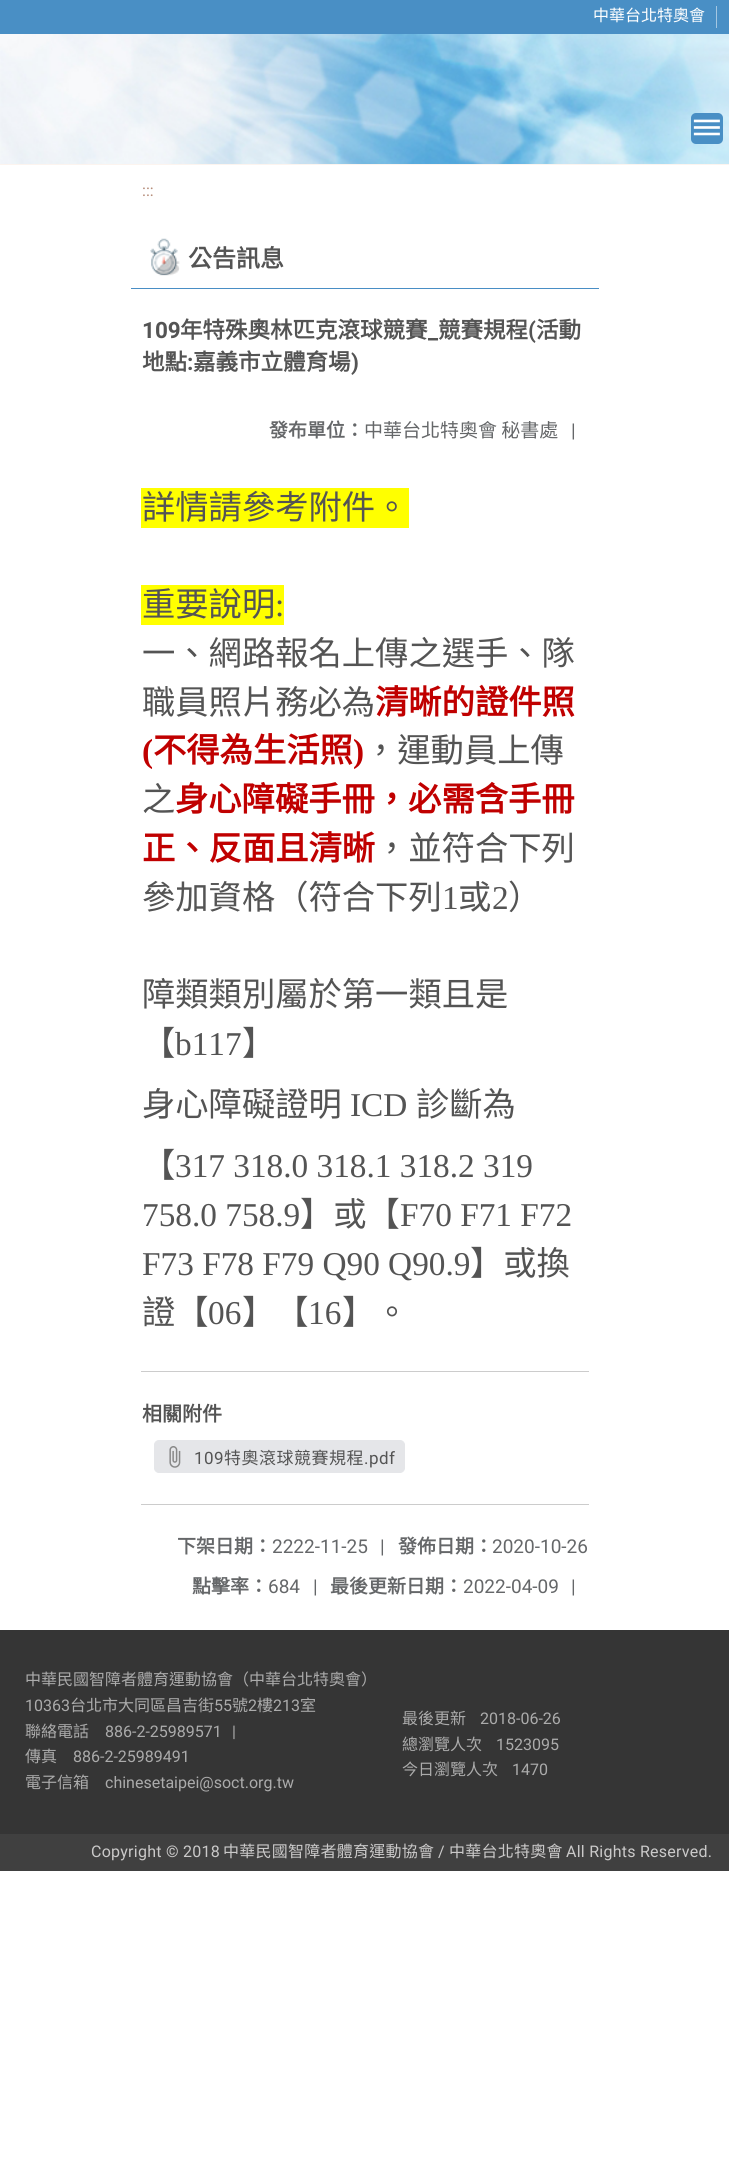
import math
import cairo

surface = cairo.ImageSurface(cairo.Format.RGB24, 729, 2178)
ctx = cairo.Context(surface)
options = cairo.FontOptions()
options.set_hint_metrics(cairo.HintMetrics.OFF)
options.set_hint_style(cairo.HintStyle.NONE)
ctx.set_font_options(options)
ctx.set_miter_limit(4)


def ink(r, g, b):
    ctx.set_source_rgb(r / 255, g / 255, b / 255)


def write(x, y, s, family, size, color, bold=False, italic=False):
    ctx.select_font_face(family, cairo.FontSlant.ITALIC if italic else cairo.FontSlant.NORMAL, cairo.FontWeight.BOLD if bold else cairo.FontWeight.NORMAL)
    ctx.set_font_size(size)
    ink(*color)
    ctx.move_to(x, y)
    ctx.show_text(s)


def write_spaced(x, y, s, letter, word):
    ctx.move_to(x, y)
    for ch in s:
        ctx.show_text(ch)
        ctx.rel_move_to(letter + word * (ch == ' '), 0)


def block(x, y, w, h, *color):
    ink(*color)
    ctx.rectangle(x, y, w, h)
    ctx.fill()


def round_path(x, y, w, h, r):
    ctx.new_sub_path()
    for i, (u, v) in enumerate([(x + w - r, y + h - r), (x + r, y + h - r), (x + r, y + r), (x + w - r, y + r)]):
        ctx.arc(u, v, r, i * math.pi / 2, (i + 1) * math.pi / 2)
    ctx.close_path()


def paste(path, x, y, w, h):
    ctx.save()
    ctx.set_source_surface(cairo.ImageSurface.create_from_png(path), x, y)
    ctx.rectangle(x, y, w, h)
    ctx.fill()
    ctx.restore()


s1 = dict(family="Noto Sans CJK TC", size=16, color=(255, 255, 255))
s2 = dict(family="Roboto", size=16, color=(182, 141, 122))
s3 = dict(family="Noto Sans CJK TC", size=24, color=(84, 84, 84), bold=True)
s4 = dict(family="Roboto", size=22.5, color=(84, 84, 84), bold=True)
s5 = dict(family="Noto Sans CJK TC", size=22.5, color=(84, 84, 84), bold=True)
s6 = dict(family="Noto Sans CJK TC", size=19, color=(101, 103, 105), bold=True)
s7 = dict(family="Noto Sans CJK TC", size=19, color=(101, 103, 105))
s8 = dict(family="Roboto", size=19, color=(101, 103, 105))
s9 = dict(family="Noto Sans CJK TC", size=33.3, color=(84, 84, 84))
s10 = dict(family="Liberation Serif", size=33.3, color=(84, 84, 84))
s11 = dict(family="Noto Sans CJK TC", size=33.3, color=(192, 0, 0), bold=True)
s12 = dict(family="Liberation Serif", size=33.3, color=(192, 0, 0), bold=True)
s13 = dict(family="Noto Sans CJK TC", size=20, color=(84, 84, 84), bold=True)
s14 = dict(family="Noto Sans CJK TC", size=16, color=(171, 171, 171))
s15 = dict(family="Roboto", size=16, color=(171, 171, 171))

ink(255, 255, 255)
ctx.paint()
block(0, 0, 729, 34, 73, 143, 197)
write(593, 21, "中華台北特奧會", **s1)
block(716, 6, 1, 22, 164, 199, 226)
paste("pic1.png", 0, 34, 729, 130)
block(0, 164, 729, 1, 252, 244, 239)
ink(73, 143, 197)
round_path(691, 113, 32, 31, 5)
ctx.fill()
paste("pic2.png", 693, 119, 27, 17)
write(142, 196, ":::", **s2)
paste("pic3.png", 150, 238, 30, 38)
block(131, 288, 468, 1, 73, 142, 197)
write(188, 267, "公告訊息", **s3)
write(142, 338, "109", **s4)
write(180, 338, "年特殊奧林匹克滾球競賽", **s5)
write(438, 338, "競賽規程", **s5)
write(528, 338, "(", **s4)
write(536, 338, "活動", **s5)
write(428, 338, "_", **s4)
write(142, 370, "地點", **s5)
write(187, 370, ":", **s4)
write(193, 370, "嘉義市立體育場", **s5)
write(351, 370, ")", **s4)
write(269, 437, "發布單位：", **s6)
write(364, 437, "中華台北特奧會 秘書處", **s7)
write(571, 437, "|", **s8)
block(141, 488, 268, 40, 255, 255, 0)
write(142, 519, "詳情請參考附件。", **s9)
block(141, 585, 143, 40, 255, 255, 0)
write(142, 616, "重要說明", **s9)
write(275, 616, ":", **s10)
write(142, 665, "一、網路報名上傳之選手、隊", **s9)
write(142, 714, "職員照片務必為", **s9)
write(375, 714, "清晰的證件照", **s11)
write(142, 762, "(", **s12)
write(153, 762, "不得為生活照", **s11)
write(353, 762, ")", **s12)
write(364, 762, "，運動員上傳", **s9)
write(142, 811, "之", **s9)
write(175, 811, "身心障礙手冊，必需含手冊", **s11)
write(142, 860, "正、反面且清晰", **s11)
write(375, 860, "，並符合下列", **s9)
write(142, 909, "參加資格（符合下列", **s9)
write(442, 909, "1", **s10)
write(458, 909, "或", **s9)
write(492, 909, "2", **s10)
write(508, 909, "）", **s9)
write(142, 1006, "障類類別屬於第一類且是", **s9)
write(142, 1055, "【", **s9)
write(175, 1055, "b117", **s10)
write(242, 1055, "】", **s9)
write(142, 1116, "身心障礙證明", **s9)
write(350, 1116, "ICD", **s10)
write(416, 1116, "診斷為", **s9)
write(142, 1177, "【", **s9)
write(175, 1177, "317 318.0 318.1 318.2 319", **s10)
write(142, 1226, "758.0 758.9", **s10)
write(300, 1226, "】或【", **s9)
write(400, 1226, "F70 F71 F72", **s10)
write(142, 1275, "F73 F78 F79 Q90 Q90.9", **s10)
write(470, 1275, "】或換", **s9)
write(142, 1324, "證【", **s9)
write(208, 1324, "06", **s10)
write(242, 1324, "】【", **s9)
write(308, 1324, "16", **s10)
write(342, 1324, "】。", **s9)
block(141, 1371, 448, 1, 204, 204, 204)
write(142, 1421, "相關附件", **s13)
ink(229, 230, 233)
round_path(154.5, 1440.5, 250, 32, 4.5)
ctx.fill_preserve()
ctx.set_line_width(1)
ctx.stroke()
paste("pic4.png", 169, 1446, 12, 22)
ctx.select_font_face("Roboto")
ctx.set_font_size(17)
ink(84, 84, 84)
write_spaced(194, 1464, "109", 0.5, 0)
ctx.select_font_face("Noto Sans CJK TC")
write_spaced(224, 1464, "特奧滾球競賽規程", 0.5, 0)
ctx.select_font_face("Roboto")
write_spaced(364, 1464, ".pdf", 0.5, 0)
block(141, 1504, 448, 1, 204, 204, 204)
write(177, 1553, "下架日期：", **s6)
write(272, 1553, "2222-11-25", **s8)
write(380, 1553, "|", **s8)
write(398, 1553, "發佈日期：", **s6)
write(492, 1553, "2020-10-26", **s8)
write(192, 1593, "點擊率：", **s6)
write(268, 1593, "684", **s8)
write(313, 1593, "|", **s8)
write(330, 1593, "最後更新日期：", **s6)
write(463, 1593, "2022-04-09", **s8)
write(571, 1593, "|", **s8)
block(0, 1630, 729, 204, 53, 53, 53)
write(25, 1685, "中華民國智障者體育運動協會（中華台北特奧會）", **s14)
write(25, 1711, "10363", **s15)
write(70, 1711, "台北市大同區昌吉街", **s14)
write(214, 1711, "55", **s15)
write(232, 1711, "號", **s14)
write(248, 1711, "2", **s15)
write(257, 1711, "樓", **s14)
write(273, 1711, "213", **s15)
write(300, 1711, "室", **s14)
write(25, 1737, "聯絡電話", **s14)
write(105, 1737, "886-2-25989571", **s15)
write(232, 1737, "|", **s15)
write(25, 1762, "傳真", **s14)
write(73, 1762, "886-2-25989491", **s15)
write(25, 1788, "電子信箱", **s14)
write(105, 1788, "chinesetaipei@soct.org.tw", **s15)
write(402, 1724, "最後更新", **s14)
write(480, 1724, "2018-06-26", **s15)
write(402, 1750, "總瀏覽人次", **s14)
write(496, 1750, "1523095", **s15)
write(402, 1775, "今日瀏覽人次", **s14)
write(512, 1775, "1470", **s15)
block(0, 1834, 729, 37, 64, 64, 64)
ink(202, 201, 201)
write_spaced(91, 1857, "Copyright © 2018", 0.25, 0)
ctx.select_font_face("Noto Sans CJK TC")
write_spaced(223, 1857, "中華民國智障者體育運動協會", 0.25, 0)
ctx.select_font_face("Roboto")
write_spaced(438, 1857, "/", 0.25, 0)
ctx.select_font_face("Noto Sans CJK TC")
write_spaced(449, 1857, "中華台北特奧會", 0.25, 0)
ctx.select_font_face("Roboto")
write_spaced(566, 1857, "All Rights Reserved.", 0.25, 0)
surface.write_to_png("screenshot.png")
